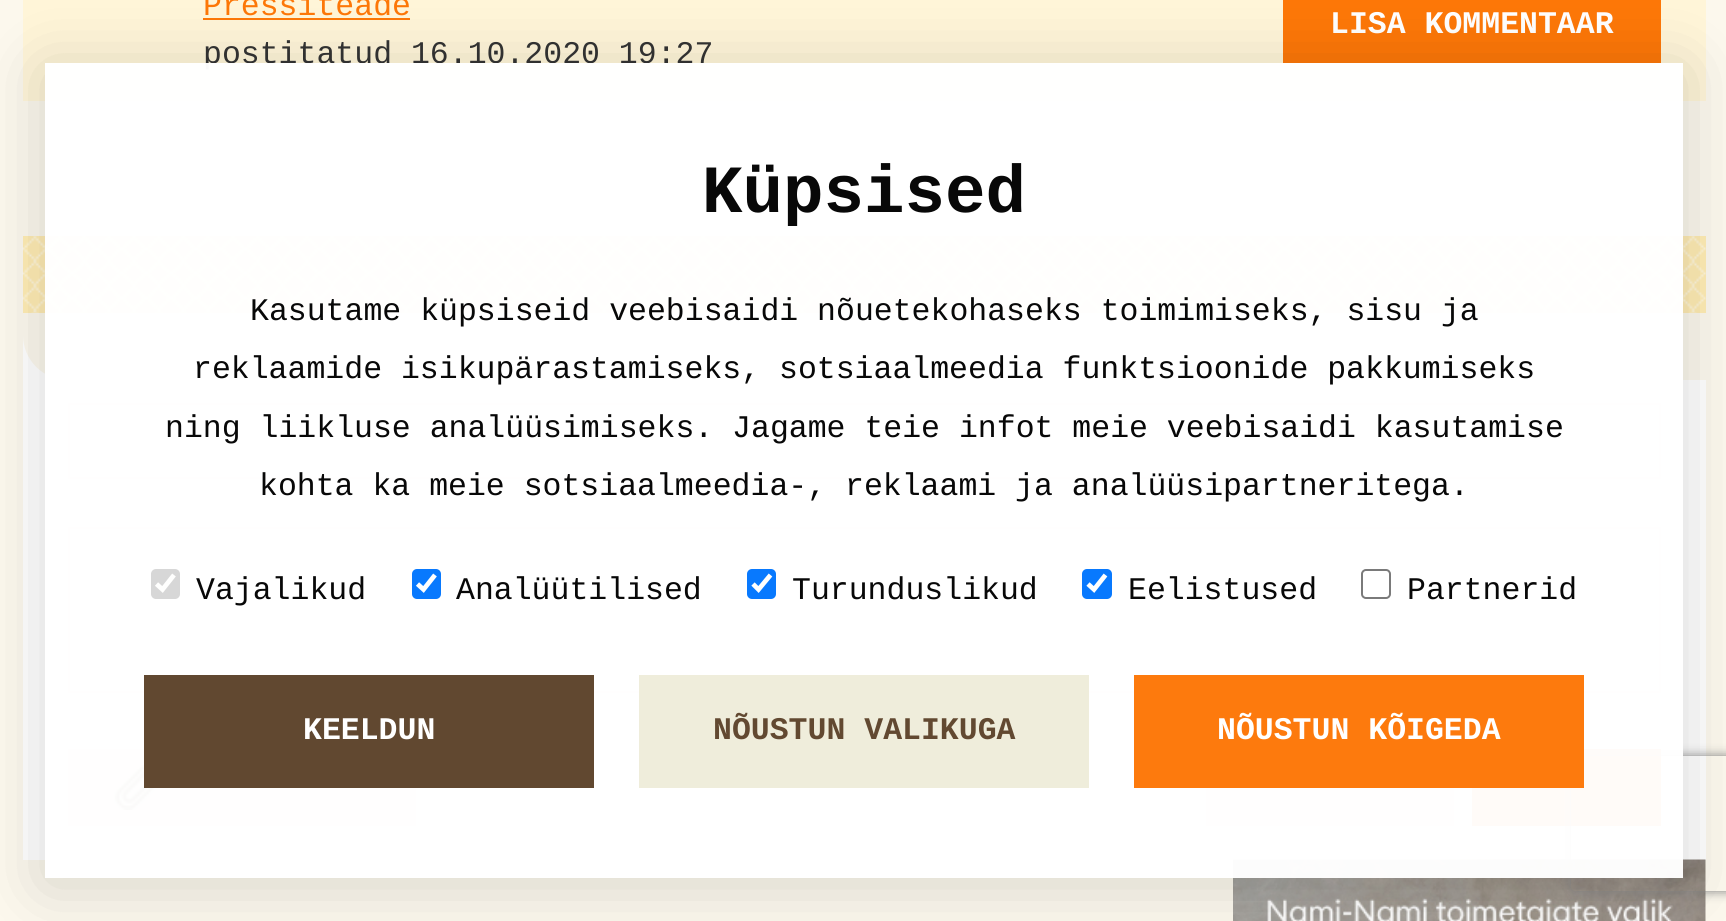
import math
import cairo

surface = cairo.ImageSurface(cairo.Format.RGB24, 1726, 921)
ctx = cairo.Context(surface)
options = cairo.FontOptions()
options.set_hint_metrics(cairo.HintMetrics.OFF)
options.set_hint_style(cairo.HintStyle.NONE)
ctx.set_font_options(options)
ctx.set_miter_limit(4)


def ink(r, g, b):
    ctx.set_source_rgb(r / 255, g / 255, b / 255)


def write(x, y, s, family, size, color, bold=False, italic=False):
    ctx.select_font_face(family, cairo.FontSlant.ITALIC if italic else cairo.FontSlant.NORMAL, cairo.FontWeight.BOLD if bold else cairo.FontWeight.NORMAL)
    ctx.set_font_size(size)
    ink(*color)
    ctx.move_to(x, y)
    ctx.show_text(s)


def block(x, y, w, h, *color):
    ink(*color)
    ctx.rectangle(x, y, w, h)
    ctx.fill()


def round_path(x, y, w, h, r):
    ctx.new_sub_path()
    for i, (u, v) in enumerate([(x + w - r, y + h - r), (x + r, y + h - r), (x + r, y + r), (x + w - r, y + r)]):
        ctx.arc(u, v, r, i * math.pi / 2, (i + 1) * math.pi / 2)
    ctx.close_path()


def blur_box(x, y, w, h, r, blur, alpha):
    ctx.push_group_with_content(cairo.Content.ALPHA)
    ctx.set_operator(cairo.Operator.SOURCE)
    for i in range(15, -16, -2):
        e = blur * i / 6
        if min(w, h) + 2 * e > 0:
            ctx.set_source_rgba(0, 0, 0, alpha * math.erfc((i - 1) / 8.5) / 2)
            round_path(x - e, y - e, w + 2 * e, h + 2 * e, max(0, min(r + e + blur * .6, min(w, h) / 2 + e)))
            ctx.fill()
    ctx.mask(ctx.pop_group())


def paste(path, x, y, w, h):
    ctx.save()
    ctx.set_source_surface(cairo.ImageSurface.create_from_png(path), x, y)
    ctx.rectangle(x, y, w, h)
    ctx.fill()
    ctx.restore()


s1 = dict(family="Liberation Mono", size=31.5, color=(253, 119, 7))
s2 = dict(family="Liberation Mono", size=31.5, color=(255, 255, 255), bold=True)
s3 = dict(family="Liberation Mono", size=31.5, color=(51, 51, 51))
s4 = dict(family="Liberation Mono", size=67.5, color=(8, 8, 8), bold=True)
s5 = dict(family="Liberation Mono", size=31.5, color=(8, 8, 8))
s6 = dict(family="Liberation Mono", size=31.5, color=(98, 73, 49), bold=True)

ink(252, 248, 237)
ctx.paint()
block(23, 0, 1683, 101, 255, 245, 216)
write(203, 15, "Pressiteade", **s1)
block(203, 18, 207, 2, 253, 119, 7)
block(1283, 0, 378, 63, 253, 119, 7)
write(1330, 33, "LISA KOMMENTAAR", **s2)
write(203, 63, "postitatud 16.10.2020 19:27", **s3)
block(23, 236, 1683, 77, 255, 236, 180)
paste("pic1.png", 22, 236, 1684, 77)
block(23, 335, 45, 45, 255, 255, 255)
ink(252, 248, 237)
ctx.new_path()
ctx.move_to(23, 313)
ctx.line_to(1706, 313)
ctx.line_to(1706, 380)
ctx.line_to(68, 380)
ctx.curve_to(43, 380, 23, 360, 23, 335)
ctx.close_path()
ctx.fill()
block(23, 380, 1683, 480, 255, 255, 255)
ink(252, 248, 237)
ctx.rectangle(69, 404, 1591, 74)
ctx.fill_preserve()
ink(239, 236, 218)
ctx.stroke()
ink(252, 248, 237)
ctx.rectangle(69, 528, 1591, 164)
ctx.fill_preserve()
ink(239, 236, 218)
ctx.stroke()
block(68, 749, 348, 77, 239, 236, 218)
paste("pic2.png", 114, 765, 48, 45)
block(1206, 749, 248, 77, 239, 236, 218)
block(1472, 749, 189, 77, 253, 119, 7)
paste("pic3.png", 1233, 859, 473, 62)
ctx.save()
ctx.set_fill_rule(cairo.FillRule.EVEN_ODD)
ctx.new_path()
ctx.move_to(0, 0)
ctx.line_to(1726, 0)
ctx.line_to(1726, 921)
ctx.line_to(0, 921)
ctx.close_path()
ctx.move_to(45, 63)
ctx.line_to(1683, 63)
ctx.line_to(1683, 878)
ctx.line_to(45, 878)
ctx.close_path()
ctx.clip()
ink(0, 0, 0)
blur_box(45, 70, 1638, 814, 0, 34, 0.16)
ctx.restore()
ctx.save()
ctx.set_fill_rule(cairo.FillRule.EVEN_ODD)
ctx.new_path()
ctx.move_to(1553, 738)
ctx.line_to(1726, 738)
ctx.line_to(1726, 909)
ctx.line_to(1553, 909)
ctx.close_path()
ctx.move_to(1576, 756)
ctx.line_to(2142, 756)
ctx.curve_to(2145, 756, 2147, 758, 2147, 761)
ctx.line_to(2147, 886)
ctx.curve_to(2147, 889, 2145, 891, 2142, 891)
ctx.line_to(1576, 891)
ctx.curve_to(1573, 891, 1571, 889, 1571, 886)
ctx.line_to(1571, 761)
ctx.curve_to(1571, 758, 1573, 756, 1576, 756)
ctx.close_path()
ctx.clip()
ink(128, 128, 128)
blur_box(1571, 756, 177, 135, 5, 5.5, 1)
ctx.restore()
ctx.set_source_rgba(1, 1, 1, 0.97)
ctx.rectangle(45, 63, 1638, 815)
ctx.fill()
write(702, 212, "Küpsised", **s4)
write(250, 320, "Kasutame küpsiseid veebisaidi nõuetekohaseks toimimiseks, sisu ja", **s5)
write(193, 378, "reklaamide isikupärastamiseks, sotsiaalmeedia funktsioonide pakkumiseks", **s5)
write(165, 437, "ning liikluse analüüsimiseks. Jagame teie infot meie veebisaidi kasutamise", **s5)
write(259, 495, "kohta ka meie sotsiaalmeedia-, reklaami ja analüüsipartneritega.", **s5)
ctx.set_source_rgba(0.463, 0.463, 0.463, 0.29)
round_path(151, 569, 29, 30, 5)
ctx.fill()
ctx.new_path()
ctx.move_to(156.5, 584)
ctx.line_to(162.5, 589.5)
ctx.line_to(174, 575)
ink(255, 255, 254)
ctx.set_line_width(4.7)
ctx.stroke()
write(196, 599, "Vajalikud", **s5)
ink(8, 121, 254)
round_path(412, 569, 29, 30, 5)
ctx.fill()
ctx.new_path()
ctx.move_to(417.5, 584)
ctx.line_to(423.5, 589.5)
ctx.line_to(435, 575)
ink(255, 255, 254)
ctx.stroke()
write(456, 599, "Analüütilised", **s5)
ink(8, 121, 254)
round_path(747, 569, 29, 30, 5)
ctx.fill()
ctx.new_path()
ctx.move_to(753, 584)
ctx.line_to(758.5, 589.5)
ctx.line_to(770.5, 575)
ink(255, 255, 254)
ctx.stroke()
write(792, 599, "Turunduslikud", **s5)
ink(8, 121, 254)
round_path(1082, 569, 30, 30, 5)
ctx.fill()
ctx.new_path()
ctx.move_to(1088, 584)
ctx.line_to(1094, 589.5)
ctx.line_to(1105.5, 575)
ink(255, 255, 254)
ctx.stroke()
write(1128, 599, "Eelistused", **s5)
round_path(1362, 570, 28, 28, 4)
ink(122, 122, 122)
ctx.set_line_width(2)
ctx.stroke()
write(1407, 599, "Partnerid", **s5)
ctx.set_source_rgba(0.365, 0.263, 0.169, 0.97)
ctx.rectangle(144, 675, 450, 113)
ctx.fill()
write(303, 739, "KEELDUN", **s2)
block(639, 675, 450, 113, 239, 237, 219)
write(713, 739, "NÕUSTUN VALIKUGA", **s6)
ctx.set_source_rgba(0.992, 0.467, 0.027, 0.97)
ctx.rectangle(1134, 675, 450, 113)
ctx.fill()
write(1217, 739, "NÕUSTUN KÕIGEDA", **s2)
surface.write_to_png("screenshot.png")
